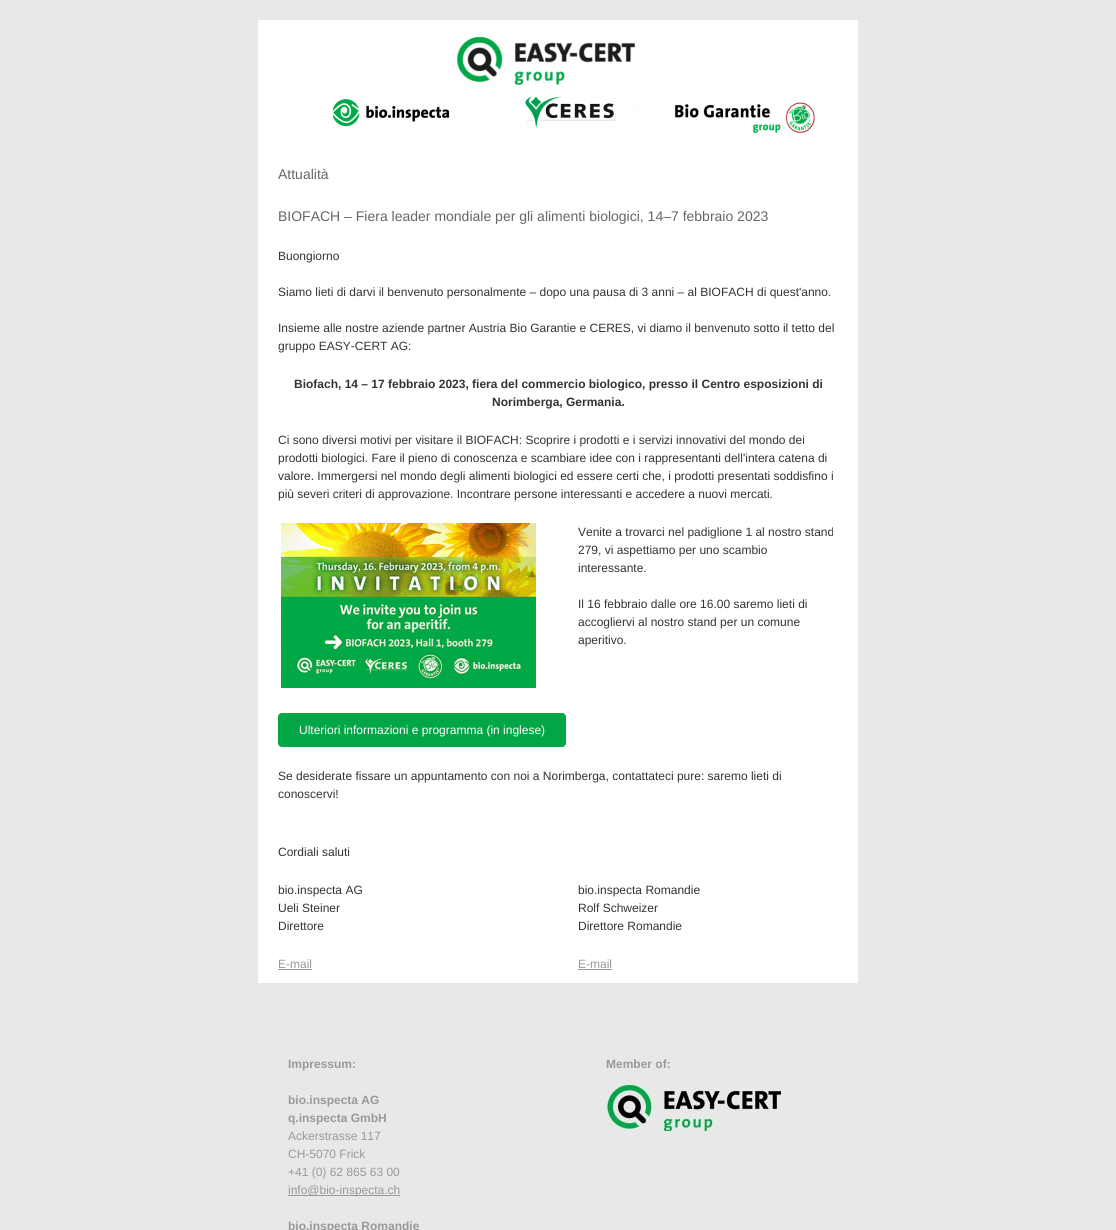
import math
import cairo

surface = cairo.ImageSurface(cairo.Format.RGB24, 1116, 1230)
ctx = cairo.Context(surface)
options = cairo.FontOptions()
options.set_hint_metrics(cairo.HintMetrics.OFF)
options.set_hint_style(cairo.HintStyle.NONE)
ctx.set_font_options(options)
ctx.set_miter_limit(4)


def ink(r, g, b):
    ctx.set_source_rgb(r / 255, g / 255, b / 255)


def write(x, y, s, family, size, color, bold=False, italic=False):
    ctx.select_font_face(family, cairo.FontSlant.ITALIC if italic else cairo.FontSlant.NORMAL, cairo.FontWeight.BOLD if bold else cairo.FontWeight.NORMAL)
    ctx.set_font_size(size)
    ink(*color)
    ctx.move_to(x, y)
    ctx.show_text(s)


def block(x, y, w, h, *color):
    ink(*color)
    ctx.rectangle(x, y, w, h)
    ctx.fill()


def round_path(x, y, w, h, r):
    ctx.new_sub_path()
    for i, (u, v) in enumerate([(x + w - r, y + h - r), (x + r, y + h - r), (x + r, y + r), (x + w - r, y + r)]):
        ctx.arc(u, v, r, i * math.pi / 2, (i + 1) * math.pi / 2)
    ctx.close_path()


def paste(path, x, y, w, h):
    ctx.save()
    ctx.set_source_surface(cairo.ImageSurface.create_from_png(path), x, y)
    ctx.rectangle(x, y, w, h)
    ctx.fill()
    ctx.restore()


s1 = dict(family="Liberation Sans", size=14, color=(102, 102, 102))
s2 = dict(family="Liberation Sans", size=12, color=(51, 51, 51))
s3 = dict(family="Liberation Sans", size=12, color=(51, 51, 51), bold=True)
s4 = dict(family="Liberation Sans", size=12, color=(255, 255, 255))
s5 = dict(family="Liberation Sans", size=12, color=(153, 153, 153))
s6 = dict(family="Liberation Sans", size=12, color=(153, 153, 153), bold=True)

ink(232, 232, 232)
ctx.paint()
block(258, 20, 600, 493, 255, 255, 255)
paste("pic1.png", 332, 36, 483, 98)
write(278, 179, "Attualità", **s1)
write(278, 221, "BIOFACH – Fiera leader mondiale per gli alimenti biologici, 14–7 febbraio 2023", **s1)
write(278, 260, "Buongiorno", **s2)
write(278, 296, "Siamo lieti di darvi il benvenuto personalmente – dopo una pausa di 3 anni – al BIOFACH di quest'anno.", **s2)
write(278, 332, "Insieme alle nostre aziende partner Austria Bio Garantie e CERES, vi diamo il benvenuto sotto il tetto del", **s2)
write(278, 350, "gruppo EASY-CERT AG:", **s2)
write(294, 388, "Biofach, 14 – 17 febbraio 2023, fiera del commercio biologico, presso il Centro esposizioni di", **s3)
write(492, 406, "Norimberga, Germania.", **s3)
write(278, 444, "Ci sono diversi motivi per visitare il BIOFACH: Scoprire i prodotti e i servizi innovativi del mondo dei", **s2)
write(278, 462, "prodotti biologici. Fare il pieno di conoscenza e scambiare idee con i rappresentanti dell'intera catena di", **s2)
write(278, 480, "valore. Immergersi nel mondo degli alimenti biologici ed essere certi che, i prodotti presentati soddisfino i", **s2)
write(278, 498, "più severi criteri di approvazione. Incontrare persone interessanti e accedere a nuovi mercati.", **s2)
block(258, 513, 600, 358, 255, 255, 255)
paste("pic2.png", 281, 523, 255, 165)
write(578, 536, "Venite a trovarci nel padiglione 1 al nostro stand", **s2)
write(578, 554, "279, vi aspettiamo per uno scambio", **s2)
write(578, 572, "interessante.", **s2)
write(578, 608, "Il 16 febbraio dalle ore 16.00 saremo lieti di", **s2)
write(578, 626, "accogliervi al nostro stand per un comune", **s2)
write(578, 644, "aperitivo.", **s2)
ink(1, 167, 71)
round_path(278.5, 713.5, 287, 33, 3.5)
ctx.fill_preserve()
ctx.set_line_width(1)
ctx.stroke()
write(299, 734, "Ulteriori informazioni e programma (in inglese)", **s4)
write(278, 780, "Se desiderate fissare un appuntamento con noi a Norimberga, contattateci pure: saremo lieti di", **s2)
write(278, 798, "conoscervi!", **s2)
write(278, 856, "Cordiali saluti", **s2)
block(258, 871, 600, 112, 255, 255, 255)
write(278, 894, "bio.inspecta AG", **s2)
write(278, 912, "Ueli Steiner", **s2)
write(278, 930, "Direttore", **s2)
write(278, 968, "E-mail", **s5)
block(278, 969, 34, 1, 153, 153, 153)
write(578, 894, "bio.inspecta Romandie", **s2)
write(578, 912, "Rolf Schweizer", **s2)
write(578, 930, "Direttore Romandie", **s2)
write(578, 968, "E-mail", **s5)
block(578, 969, 34, 1, 153, 153, 153)
write(288, 1068, "Impressum:", **s6)
write(288, 1104, "bio.inspecta AG", **s6)
write(288, 1122, "q.inspecta GmbH", **s6)
write(288, 1140, "Ackerstrasse 117", **s5)
write(288, 1158, "CH-5070 Frick", **s5)
write(288, 1176, "+41 (0) 62 865 63 00", **s5)
block(288, 1195, 112, 1, 153, 153, 153)
write(288, 1194, "info@bio-inspecta.ch", **s5)
write(288, 1230, "bio.inspecta Romandie", **s6)
write(606, 1068, "Member of:", **s6)
paste("pic3.png", 606, 1083, 176, 49)
surface.write_to_png("screenshot.png")
